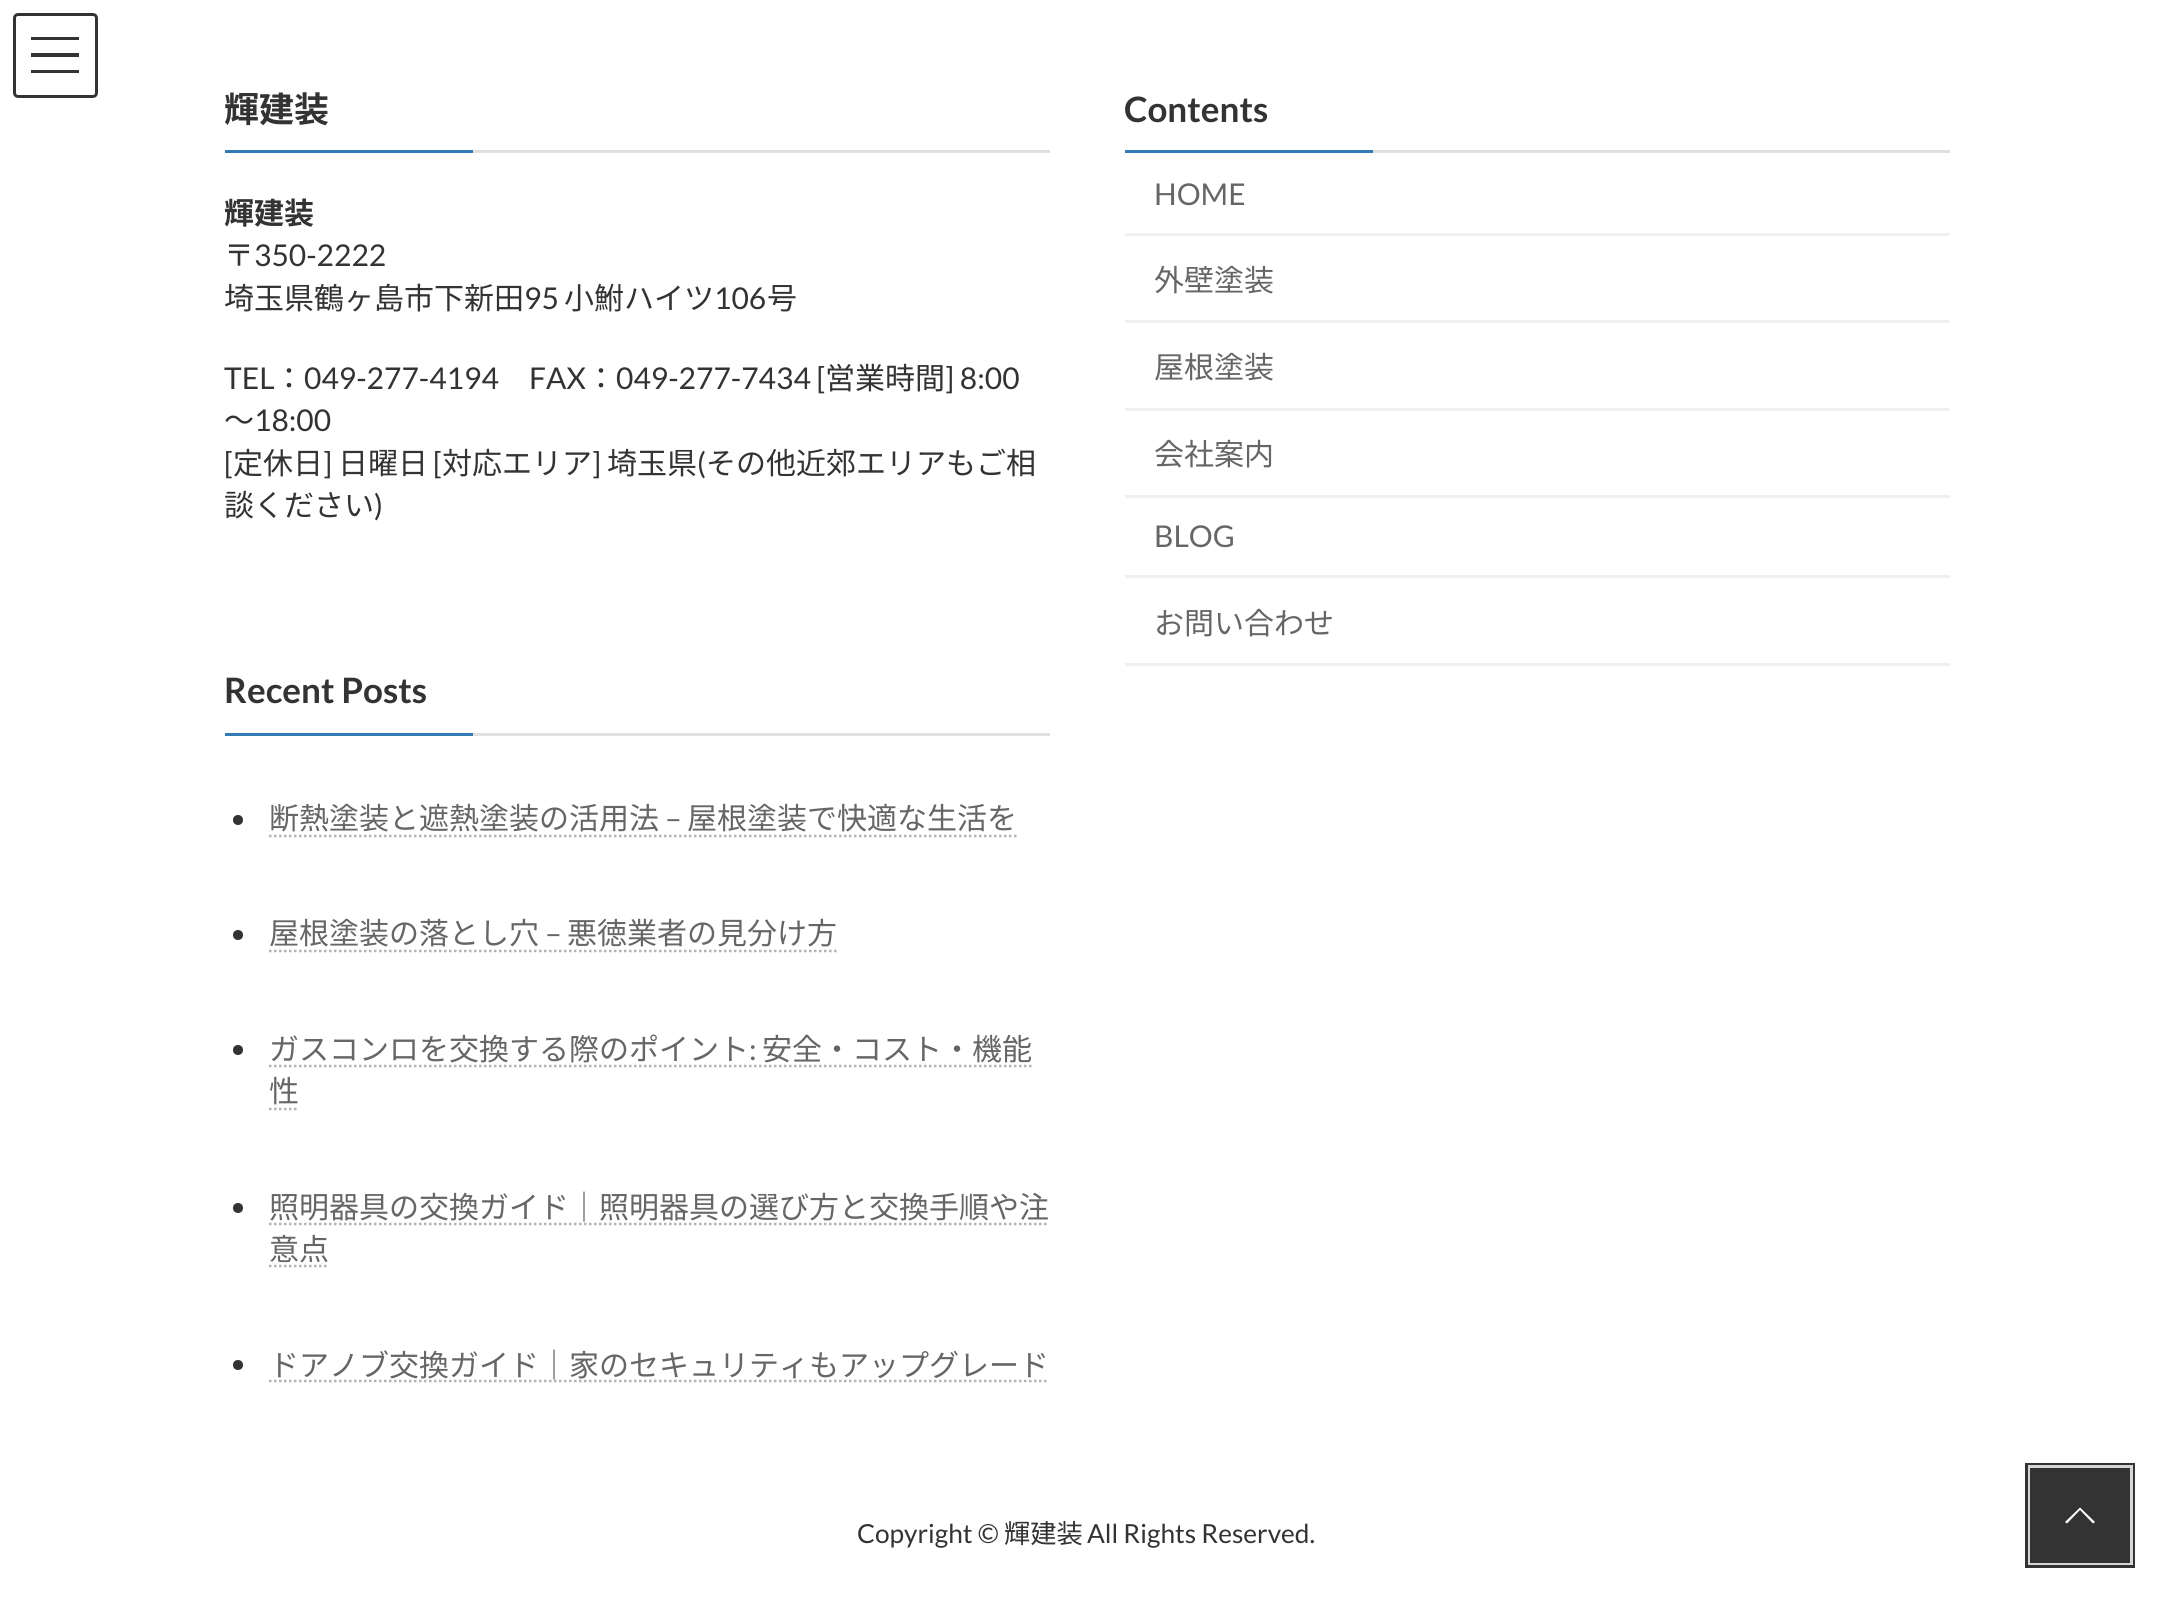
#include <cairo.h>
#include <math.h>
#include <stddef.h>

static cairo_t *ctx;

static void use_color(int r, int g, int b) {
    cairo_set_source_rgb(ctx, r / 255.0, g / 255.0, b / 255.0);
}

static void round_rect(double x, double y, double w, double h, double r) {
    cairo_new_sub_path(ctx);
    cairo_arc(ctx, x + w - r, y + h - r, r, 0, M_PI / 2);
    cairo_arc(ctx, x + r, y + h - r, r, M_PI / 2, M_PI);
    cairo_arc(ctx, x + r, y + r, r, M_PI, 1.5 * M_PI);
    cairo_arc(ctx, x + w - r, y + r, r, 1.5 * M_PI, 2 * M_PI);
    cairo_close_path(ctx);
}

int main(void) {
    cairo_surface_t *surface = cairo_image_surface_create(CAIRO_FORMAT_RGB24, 2171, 1610);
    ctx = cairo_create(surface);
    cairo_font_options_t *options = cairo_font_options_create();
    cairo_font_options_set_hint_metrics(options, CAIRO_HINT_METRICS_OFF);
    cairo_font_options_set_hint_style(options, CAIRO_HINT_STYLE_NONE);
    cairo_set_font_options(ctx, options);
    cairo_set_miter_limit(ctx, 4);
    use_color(255, 255, 255);
    cairo_paint(ctx);
    use_color(51, 51, 51);
    cairo_rectangle(ctx, 31, 37, 48, 3);
    cairo_fill(ctx);
    cairo_rectangle(ctx, 31, 53, 48, 4);
    cairo_fill(ctx);
    cairo_rectangle(ctx, 31, 70, 48, 3);
    cairo_fill(ctx);
    round_rect(14.5, 14.5, 82, 82, 3.5);
    cairo_set_line_width(ctx, 3);
    cairo_stroke(ctx);
    use_color(224, 224, 224);
    cairo_rectangle(ctx, 473, 150, 577, 3);
    cairo_fill(ctx);
    cairo_select_font_face(ctx, "Noto Sans JP", CAIRO_FONT_SLANT_NORMAL, CAIRO_FONT_WEIGHT_BOLD);
    cairo_set_font_size(ctx, 35);
    use_color(51, 51, 51);
    cairo_move_to(ctx, 224, 122);
    cairo_show_text(ctx, "輝建装");
    use_color(51, 122, 183);
    cairo_rectangle(ctx, 225, 150, 248, 3);
    cairo_fill(ctx);
    cairo_set_font_size(ctx, 30);
    use_color(51, 51, 51);
    cairo_move_to(ctx, 224, 224);
    cairo_show_text(ctx, "輝建装");
    cairo_select_font_face(ctx, "Noto Sans JP", CAIRO_FONT_SLANT_NORMAL, CAIRO_FONT_WEIGHT_NORMAL);
    cairo_move_to(ctx, 224, 266);
    cairo_show_text(ctx, "〒");
    cairo_select_font_face(ctx, "Lato", CAIRO_FONT_SLANT_NORMAL, CAIRO_FONT_WEIGHT_NORMAL);
    cairo_move_to(ctx, 254, 266);
    cairo_show_text(ctx, "350-2222");
    cairo_select_font_face(ctx, "Noto Sans JP", CAIRO_FONT_SLANT_NORMAL, CAIRO_FONT_WEIGHT_NORMAL);
    cairo_move_to(ctx, 224, 309);
    cairo_show_text(ctx, "埼玉県鶴ヶ島市下新田");
    cairo_select_font_face(ctx, "Lato", CAIRO_FONT_SLANT_NORMAL, CAIRO_FONT_WEIGHT_NORMAL);
    cairo_move_to(ctx, 524, 309);
    cairo_show_text(ctx, "95");
    cairo_select_font_face(ctx, "Noto Sans JP", CAIRO_FONT_SLANT_NORMAL, CAIRO_FONT_WEIGHT_NORMAL);
    cairo_move_to(ctx, 564, 309);
    cairo_show_text(ctx, "小鮒ハイツ");
    cairo_select_font_face(ctx, "Lato", CAIRO_FONT_SLANT_NORMAL, CAIRO_FONT_WEIGHT_NORMAL);
    cairo_move_to(ctx, 714, 309);
    cairo_show_text(ctx, "106");
    cairo_select_font_face(ctx, "Noto Sans JP", CAIRO_FONT_SLANT_NORMAL, CAIRO_FONT_WEIGHT_NORMAL);
    cairo_move_to(ctx, 767, 309);
    cairo_show_text(ctx, "号");
    cairo_select_font_face(ctx, "Lato", CAIRO_FONT_SLANT_NORMAL, CAIRO_FONT_WEIGHT_NORMAL);
    cairo_move_to(ctx, 224, 389);
    cairo_show_text(ctx, "TEL");
    cairo_select_font_face(ctx, "Noto Sans JP", CAIRO_FONT_SLANT_NORMAL, CAIRO_FONT_WEIGHT_NORMAL);
    cairo_move_to(ctx, 274, 389);
    cairo_show_text(ctx, "：");
    cairo_select_font_face(ctx, "Lato", CAIRO_FONT_SLANT_NORMAL, CAIRO_FONT_WEIGHT_NORMAL);
    cairo_move_to(ctx, 304, 389);
    cairo_show_text(ctx, "049-277-4194");
    cairo_move_to(ctx, 529, 389);
    cairo_show_text(ctx, "FAX");
    cairo_select_font_face(ctx, "Noto Sans JP", CAIRO_FONT_SLANT_NORMAL, CAIRO_FONT_WEIGHT_NORMAL);
    cairo_move_to(ctx, 586, 389);
    cairo_show_text(ctx, "：");
    cairo_select_font_face(ctx, "Lato", CAIRO_FONT_SLANT_NORMAL, CAIRO_FONT_WEIGHT_NORMAL);
    cairo_move_to(ctx, 616, 389);
    cairo_show_text(ctx, "049-277-7434 [");
    cairo_select_font_face(ctx, "Noto Sans JP", CAIRO_FONT_SLANT_NORMAL, CAIRO_FONT_WEIGHT_NORMAL);
    cairo_move_to(ctx, 825, 389);
    cairo_show_text(ctx, "営業時間");
    cairo_select_font_face(ctx, "Lato", CAIRO_FONT_SLANT_NORMAL, CAIRO_FONT_WEIGHT_NORMAL);
    cairo_move_to(ctx, 945, 389);
    cairo_show_text(ctx, "] 8:00");
    cairo_select_font_face(ctx, "Noto Sans JP", CAIRO_FONT_SLANT_NORMAL, CAIRO_FONT_WEIGHT_NORMAL);
    cairo_move_to(ctx, 224, 431);
    cairo_show_text(ctx, "～");
    cairo_select_font_face(ctx, "Lato", CAIRO_FONT_SLANT_NORMAL, CAIRO_FONT_WEIGHT_NORMAL);
    cairo_move_to(ctx, 254, 431);
    cairo_show_text(ctx, "18:00");
    cairo_move_to(ctx, 224, 474);
    cairo_show_text(ctx, "[");
    cairo_select_font_face(ctx, "Noto Sans JP", CAIRO_FONT_SLANT_NORMAL, CAIRO_FONT_WEIGHT_NORMAL);
    cairo_move_to(ctx, 233, 474);
    cairo_show_text(ctx, "定休日");
    cairo_select_font_face(ctx, "Lato", CAIRO_FONT_SLANT_NORMAL, CAIRO_FONT_WEIGHT_NORMAL);
    cairo_move_to(ctx, 323, 474);
    cairo_show_text(ctx, "]");
    cairo_select_font_face(ctx, "Noto Sans JP", CAIRO_FONT_SLANT_NORMAL, CAIRO_FONT_WEIGHT_NORMAL);
    cairo_move_to(ctx, 338, 474);
    cairo_show_text(ctx, "日曜日");
    cairo_select_font_face(ctx, "Lato", CAIRO_FONT_SLANT_NORMAL, CAIRO_FONT_WEIGHT_NORMAL);
    cairo_move_to(ctx, 433, 474);
    cairo_show_text(ctx, "[");
    cairo_select_font_face(ctx, "Noto Sans JP", CAIRO_FONT_SLANT_NORMAL, CAIRO_FONT_WEIGHT_NORMAL);
    cairo_move_to(ctx, 442, 474);
    cairo_show_text(ctx, "対応エリア");
    cairo_select_font_face(ctx, "Lato", CAIRO_FONT_SLANT_NORMAL, CAIRO_FONT_WEIGHT_NORMAL);
    cairo_move_to(ctx, 592, 474);
    cairo_show_text(ctx, "]");
    cairo_select_font_face(ctx, "Noto Sans JP", CAIRO_FONT_SLANT_NORMAL, CAIRO_FONT_WEIGHT_NORMAL);
    cairo_move_to(ctx, 607, 474);
    cairo_show_text(ctx, "埼玉県");
    cairo_select_font_face(ctx, "Lato", CAIRO_FONT_SLANT_NORMAL, CAIRO_FONT_WEIGHT_NORMAL);
    cairo_move_to(ctx, 697, 474);
    cairo_show_text(ctx, "(");
    cairo_select_font_face(ctx, "Noto Sans JP", CAIRO_FONT_SLANT_NORMAL, CAIRO_FONT_WEIGHT_NORMAL);
    cairo_move_to(ctx, 706, 474);
    cairo_show_text(ctx, "その他近郊エリアもご相");
    cairo_move_to(ctx, 224, 516);
    cairo_show_text(ctx, "談ください");
    cairo_select_font_face(ctx, "Lato", CAIRO_FONT_SLANT_NORMAL, CAIRO_FONT_WEIGHT_NORMAL);
    cairo_move_to(ctx, 374, 516);
    cairo_show_text(ctx, ")");
    use_color(224, 224, 224);
    cairo_rectangle(ctx, 1373, 150, 577, 3);
    cairo_fill(ctx);
    cairo_select_font_face(ctx, "Lato", CAIRO_FONT_SLANT_NORMAL, CAIRO_FONT_WEIGHT_BOLD);
    cairo_set_font_size(ctx, 35);
    use_color(51, 51, 51);
    cairo_move_to(ctx, 1124, 122);
    cairo_show_text(ctx, "Contents");
    use_color(51, 122, 183);
    cairo_rectangle(ctx, 1125, 150, 248, 3);
    cairo_fill(ctx);
    use_color(240, 240, 240);
    cairo_rectangle(ctx, 1125, 233, 825, 3);
    cairo_fill(ctx);
    cairo_select_font_face(ctx, "Lato", CAIRO_FONT_SLANT_NORMAL, CAIRO_FONT_WEIGHT_NORMAL);
    cairo_set_font_size(ctx, 30);
    use_color(102, 102, 102);
    cairo_move_to(ctx, 1154, 205);
    cairo_show_text(ctx, "HOME");
    use_color(240, 240, 240);
    cairo_rectangle(ctx, 1125, 320, 825, 3);
    cairo_fill(ctx);
    cairo_select_font_face(ctx, "Noto Sans JP", CAIRO_FONT_SLANT_NORMAL, CAIRO_FONT_WEIGHT_NORMAL);
    use_color(102, 102, 102);
    cairo_move_to(ctx, 1154, 291);
    cairo_show_text(ctx, "外壁塗装");
    use_color(240, 240, 240);
    cairo_rectangle(ctx, 1125, 408, 825, 3);
    cairo_fill(ctx);
    use_color(102, 102, 102);
    cairo_move_to(ctx, 1154, 378);
    cairo_show_text(ctx, "屋根塗装");
    use_color(240, 240, 240);
    cairo_rectangle(ctx, 1125, 495, 825, 3);
    cairo_fill(ctx);
    use_color(102, 102, 102);
    cairo_move_to(ctx, 1154, 465);
    cairo_show_text(ctx, "会社案内");
    use_color(240, 240, 240);
    cairo_rectangle(ctx, 1125, 575, 825, 3);
    cairo_fill(ctx);
    cairo_select_font_face(ctx, "Lato", CAIRO_FONT_SLANT_NORMAL, CAIRO_FONT_WEIGHT_NORMAL);
    use_color(102, 102, 102);
    cairo_move_to(ctx, 1154, 547);
    cairo_show_text(ctx, "BLOG");
    use_color(240, 240, 240);
    cairo_rectangle(ctx, 1125, 663, 825, 3);
    cairo_fill(ctx);
    cairo_select_font_face(ctx, "Noto Sans JP", CAIRO_FONT_SLANT_NORMAL, CAIRO_FONT_WEIGHT_NORMAL);
    use_color(102, 102, 102);
    cairo_move_to(ctx, 1154, 634);
    cairo_show_text(ctx, "お問い合わせ");
    use_color(224, 224, 224);
    cairo_rectangle(ctx, 473, 733, 577, 3);
    cairo_fill(ctx);
    cairo_select_font_face(ctx, "Lato", CAIRO_FONT_SLANT_NORMAL, CAIRO_FONT_WEIGHT_BOLD);
    cairo_set_font_size(ctx, 35);
    use_color(51, 51, 51);
    cairo_move_to(ctx, 224, 703);
    cairo_show_text(ctx, "Recent Posts");
    use_color(51, 122, 183);
    cairo_rectangle(ctx, 225, 733, 248, 3);
    cairo_fill(ctx);
    use_color(51, 51, 51);
    cairo_arc(ctx, 238, 820, 5, 0, 2 * M_PI);
    cairo_fill(ctx);
    cairo_select_font_face(ctx, "Noto Sans JP", CAIRO_FONT_SLANT_NORMAL, CAIRO_FONT_WEIGHT_NORMAL);
    cairo_set_font_size(ctx, 30);
    use_color(102, 102, 102);
    cairo_move_to(ctx, 269, 829);
    cairo_show_text(ctx, "断熱塗装と遮熱塗装の活用法");
    cairo_select_font_face(ctx, "Lato", CAIRO_FONT_SLANT_NORMAL, CAIRO_FONT_WEIGHT_NORMAL);
    cairo_move_to(ctx, 665, 829);
    cairo_show_text(ctx, "–");
    cairo_new_path(ctx);
    cairo_move_to(ctx, 269, 836);
    cairo_line_to(ctx, 1017, 836);
    use_color(179, 179, 179);
    cairo_set_line_width(ctx, 2.5);
    cairo_set_dash(ctx, (double[]){2.5, 2.5}, 2, 0);
    cairo_stroke(ctx);
    cairo_select_font_face(ctx, "Noto Sans JP", CAIRO_FONT_SLANT_NORMAL, CAIRO_FONT_WEIGHT_NORMAL);
    use_color(102, 102, 102);
    cairo_move_to(ctx, 687, 829);
    cairo_show_text(ctx, "屋根塗装で快適な生活を");
    use_color(51, 51, 51);
    cairo_new_path(ctx);
    cairo_arc(ctx, 238, 935, 5, 0, 2 * M_PI);
    cairo_fill(ctx);
    use_color(102, 102, 102);
    cairo_move_to(ctx, 269, 944);
    cairo_show_text(ctx, "屋根塗装の落とし穴");
    cairo_select_font_face(ctx, "Lato", CAIRO_FONT_SLANT_NORMAL, CAIRO_FONT_WEIGHT_NORMAL);
    cairo_move_to(ctx, 545, 944);
    cairo_show_text(ctx, "–");
    cairo_new_path(ctx);
    cairo_move_to(ctx, 269, 951);
    cairo_line_to(ctx, 837, 951);
    use_color(179, 179, 179);
    cairo_stroke(ctx);
    cairo_select_font_face(ctx, "Noto Sans JP", CAIRO_FONT_SLANT_NORMAL, CAIRO_FONT_WEIGHT_NORMAL);
    use_color(102, 102, 102);
    cairo_move_to(ctx, 567, 944);
    cairo_show_text(ctx, "悪徳業者の見分け方");
    use_color(51, 51, 51);
    cairo_new_path(ctx);
    cairo_arc(ctx, 238, 1050, 5, 0, 2 * M_PI);
    cairo_fill(ctx);
    use_color(102, 102, 102);
    cairo_move_to(ctx, 269, 1060);
    cairo_show_text(ctx, "ガスコンロを交換する際のポイント");
    cairo_select_font_face(ctx, "Lato", CAIRO_FONT_SLANT_NORMAL, CAIRO_FONT_WEIGHT_NORMAL);
    cairo_move_to(ctx, 749, 1060);
    cairo_show_text(ctx, ":");
    cairo_new_path(ctx);
    cairo_move_to(ctx, 269, 1066);
    cairo_line_to(ctx, 1032, 1066);
    use_color(179, 179, 179);
    cairo_stroke(ctx);
    cairo_select_font_face(ctx, "Noto Sans JP", CAIRO_FONT_SLANT_NORMAL, CAIRO_FONT_WEIGHT_NORMAL);
    use_color(102, 102, 102);
    cairo_move_to(ctx, 762, 1060);
    cairo_show_text(ctx, "安全・コスト・機能");
    cairo_move_to(ctx, 269, 1102);
    cairo_show_text(ctx, "性");
    cairo_new_path(ctx);
    cairo_move_to(ctx, 269, 1109);
    cairo_line_to(ctx, 299, 1109);
    use_color(179, 179, 179);
    cairo_stroke(ctx);
    use_color(51, 51, 51);
    cairo_arc(ctx, 238, 1208, 5, 0, 2 * M_PI);
    cairo_fill(ctx);
    use_color(102, 102, 102);
    cairo_move_to(ctx, 269, 1218);
    cairo_show_text(ctx, "照明器具の交換ガイド｜照明器具の選び方と交換手順や注");
    cairo_new_path(ctx);
    cairo_move_to(ctx, 269, 1224);
    cairo_line_to(ctx, 1049, 1224);
    use_color(179, 179, 179);
    cairo_stroke(ctx);
    use_color(102, 102, 102);
    cairo_move_to(ctx, 269, 1260);
    cairo_show_text(ctx, "意点");
    cairo_new_path(ctx);
    cairo_move_to(ctx, 269, 1266);
    cairo_line_to(ctx, 329, 1266);
    use_color(179, 179, 179);
    cairo_stroke(ctx);
    use_color(51, 51, 51);
    cairo_arc(ctx, 238, 1365, 5, 0, 2 * M_PI);
    cairo_fill(ctx);
    cairo_new_path(ctx);
    cairo_move_to(ctx, 269, 1381);
    cairo_line_to(ctx, 1049, 1381);
    use_color(179, 179, 179);
    cairo_stroke(ctx);
    use_color(102, 102, 102);
    cairo_move_to(ctx, 269, 1376);
    cairo_show_text(ctx, "ドアノブ交換ガイド｜家のセキュリティもアップグレード");
    cairo_select_font_face(ctx, "Lato", CAIRO_FONT_SLANT_NORMAL, CAIRO_FONT_WEIGHT_NORMAL);
    cairo_set_font_size(ctx, 26.25);
    use_color(51, 51, 51);
    cairo_move_to(ctx, 857, 1543);
    cairo_show_text(ctx, "Copyright ©");
    cairo_select_font_face(ctx, "Noto Sans JP", CAIRO_FONT_SLANT_NORMAL, CAIRO_FONT_WEIGHT_NORMAL);
    cairo_move_to(ctx, 1004, 1543);
    cairo_show_text(ctx, "輝建装");
    cairo_select_font_face(ctx, "Lato", CAIRO_FONT_SLANT_NORMAL, CAIRO_FONT_WEIGHT_NORMAL);
    cairo_move_to(ctx, 1087, 1543);
    cairo_show_text(ctx, "All Rights Reserved.");
    cairo_rectangle(ctx, 2027.5, 1465.5, 105, 100);
    cairo_set_line_width(ctx, 5);
    cairo_set_dash(ctx, NULL, 0, 0);
    cairo_stroke(ctx);
    cairo_rectangle(ctx, 2029.5, 1466.5, 102, 97);
    cairo_set_source_rgba(ctx, 1, 1, 1, 0.8);
    cairo_set_line_width(ctx, 3);
    cairo_stroke(ctx);
    use_color(51, 51, 51);
    cairo_rectangle(ctx, 2030, 1468, 100, 95);
    cairo_fill(ctx);
    use_color(255, 255, 255);
    cairo_new_path(ctx);
    cairo_move_to(ctx, 2095, 1522);
    cairo_line_to(ctx, 2093, 1523.5);
    cairo_line_to(ctx, 2080, 1510);
    cairo_line_to(ctx, 2067, 1523.5);
    cairo_line_to(ctx, 2065, 1522);
    cairo_line_to(ctx, 2080, 1507.5);
    cairo_close_path(ctx);
    cairo_fill(ctx);
    cairo_surface_write_to_png(surface, "result.png");
    cairo_font_options_destroy(options);
    cairo_destroy(ctx);
    cairo_surface_destroy(surface);
    return 0;
}
